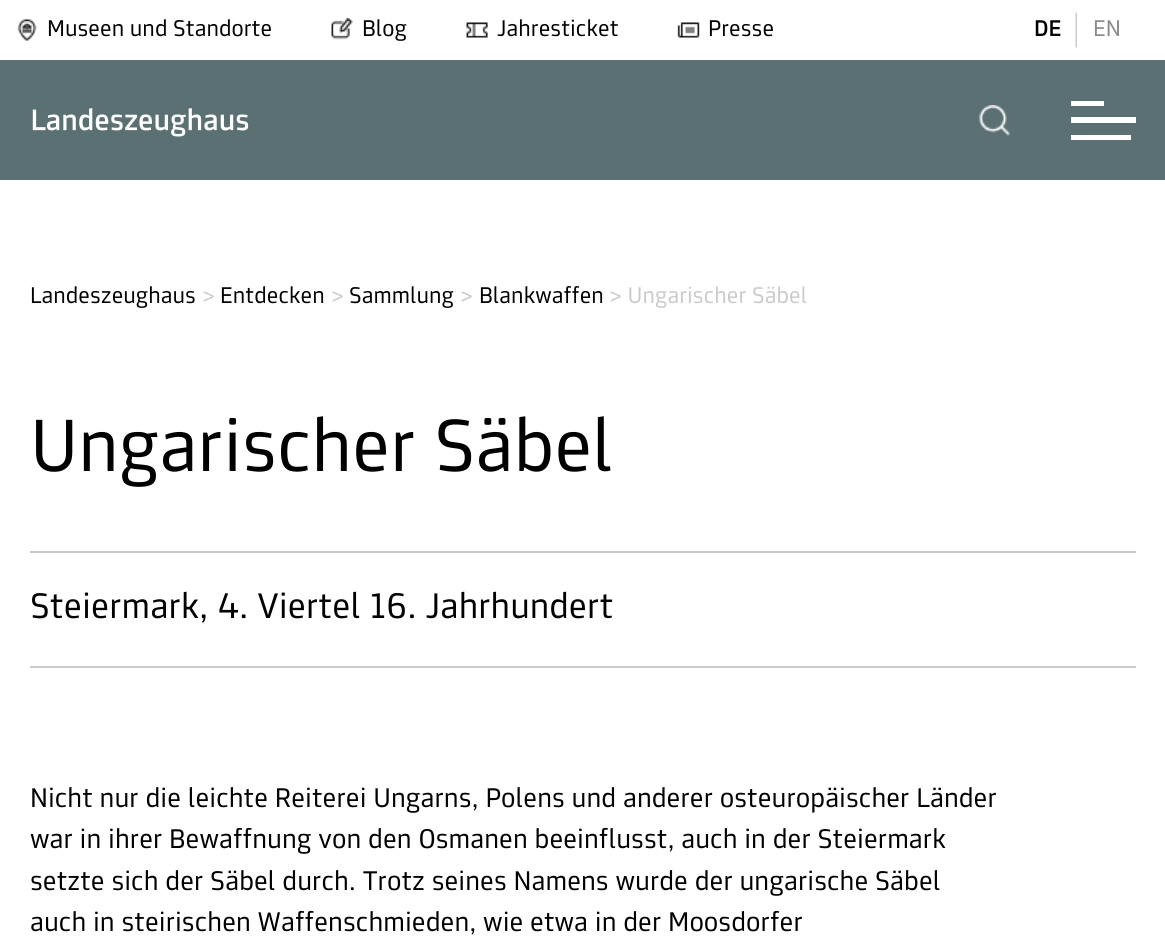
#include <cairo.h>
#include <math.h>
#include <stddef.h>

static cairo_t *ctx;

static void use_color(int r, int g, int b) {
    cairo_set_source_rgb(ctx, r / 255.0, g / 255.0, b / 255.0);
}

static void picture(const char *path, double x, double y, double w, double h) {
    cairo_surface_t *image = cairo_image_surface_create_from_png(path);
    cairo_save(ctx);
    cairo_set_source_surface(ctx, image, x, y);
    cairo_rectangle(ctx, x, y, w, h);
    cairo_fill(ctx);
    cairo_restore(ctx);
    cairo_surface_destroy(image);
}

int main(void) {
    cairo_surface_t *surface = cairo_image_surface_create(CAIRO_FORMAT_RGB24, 1165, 945);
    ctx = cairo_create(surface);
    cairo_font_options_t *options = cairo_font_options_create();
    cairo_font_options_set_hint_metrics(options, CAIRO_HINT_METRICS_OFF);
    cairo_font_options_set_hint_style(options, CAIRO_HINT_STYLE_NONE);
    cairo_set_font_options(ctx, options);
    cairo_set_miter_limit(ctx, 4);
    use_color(255, 255, 255);
    cairo_paint(ctx);
    picture("img1.png", 17, 19, 20, 22);
    cairo_select_font_face(ctx, "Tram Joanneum", CAIRO_FONT_SLANT_NORMAL, CAIRO_FONT_WEIGHT_NORMAL);
    cairo_set_font_size(ctx, 24);
    use_color(0, 0, 0);
    cairo_move_to(ctx, 47, 36);
    cairo_show_text(ctx, "Museen und Standorte");
    picture("img2.png", 331, 18, 22, 22);
    cairo_move_to(ctx, 362, 36);
    cairo_show_text(ctx, "Blog");
    picture("img3.png", 466, 22, 22, 16);
    cairo_move_to(ctx, 497, 36);
    cairo_show_text(ctx, "Jahresticket");
    picture("img4.png", 677, 22, 23, 16);
    cairo_move_to(ctx, 708, 36);
    cairo_show_text(ctx, "Presse");
    cairo_select_font_face(ctx, "Tram Joanneum Medium", CAIRO_FONT_SLANT_NORMAL, CAIRO_FONT_WEIGHT_NORMAL);
    cairo_move_to(ctx, 1034, 36);
    cairo_show_text(ctx, "DE");
    picture("img5.png", 1075, 12, 2, 36);
    cairo_select_font_face(ctx, "Tram Joanneum", CAIRO_FONT_SLANT_NORMAL, CAIRO_FONT_WEIGHT_NORMAL);
    use_color(138, 138, 138);
    cairo_move_to(ctx, 1093, 36);
    cairo_show_text(ctx, "EN");
    use_color(91, 112, 115);
    cairo_rectangle(ctx, 0, 60, 1165, 120);
    cairo_fill(ctx);
    picture("img6.png", 32, 108, 217, 29);
    picture("img7.png", 979, 105, 31, 31);
    use_color(255, 255, 255);
    cairo_rectangle(ctx, 1071, 101, 33, 5);
    cairo_fill(ctx);
    cairo_rectangle(ctx, 1071, 117, 65, 6);
    cairo_fill(ctx);
    cairo_rectangle(ctx, 1071, 135, 60, 5);
    cairo_fill(ctx);
    use_color(0, 0, 0);
    cairo_move_to(ctx, 30, 303);
    cairo_show_text(ctx, "Landeszeughaus");
    use_color(202, 202, 202);
    cairo_move_to(ctx, 202, 303);
    cairo_show_text(ctx, ">");
    use_color(0, 0, 0);
    cairo_move_to(ctx, 220, 303);
    cairo_show_text(ctx, "Entdecken");
    use_color(202, 202, 202);
    cairo_move_to(ctx, 331, 303);
    cairo_show_text(ctx, ">");
    use_color(0, 0, 0);
    cairo_move_to(ctx, 349, 303);
    cairo_show_text(ctx, "Sammlung");
    use_color(202, 202, 202);
    cairo_move_to(ctx, 460, 303);
    cairo_show_text(ctx, ">");
    use_color(0, 0, 0);
    cairo_move_to(ctx, 479, 303);
    cairo_show_text(ctx, "Blankwaffen");
    use_color(202, 202, 202);
    cairo_move_to(ctx, 609, 303);
    cairo_show_text(ctx, "> Ungarischer Säbel");
    cairo_set_font_size(ctx, 78);
    use_color(0, 0, 0);
    cairo_move_to(ctx, 30, 471);
    cairo_show_text(ctx, "Ungarischer Säbel");
    use_color(202, 202, 202);
    cairo_rectangle(ctx, 30, 551, 1106, 2);
    cairo_fill(ctx);
    cairo_set_font_size(ctx, 37.5);
    use_color(0, 0, 0);
    cairo_move_to(ctx, 30, 618);
    cairo_show_text(ctx, "Steiermark, 4. Viertel 16. Jahrhundert");
    use_color(202, 202, 202);
    cairo_rectangle(ctx, 30, 666, 1106, 2);
    cairo_fill(ctx);
    cairo_set_font_size(ctx, 28.5);
    use_color(0, 0, 0);
    cairo_move_to(ctx, 30, 807);
    cairo_show_text(ctx, "Nicht nur die leichte Reiterei Ungarns, Polens und anderer osteuropäischer Länder");
    cairo_move_to(ctx, 30, 848);
    cairo_show_text(ctx, "war in ihrer Bewaffnung von den Osmanen beeinflusst, auch in der Steiermark");
    cairo_move_to(ctx, 30, 890);
    cairo_show_text(ctx, "setzte sich der Säbel durch. Trotz seines Namens wurde der ungarische Säbel");
    cairo_move_to(ctx, 30, 931);
    cairo_show_text(ctx, "auch in steirischen Waffenschmieden, wie etwa in der Moosdorfer");
    cairo_surface_write_to_png(surface, "result.png");
    cairo_font_options_destroy(options);
    cairo_destroy(ctx);
    cairo_surface_destroy(surface);
    return 0;
}
